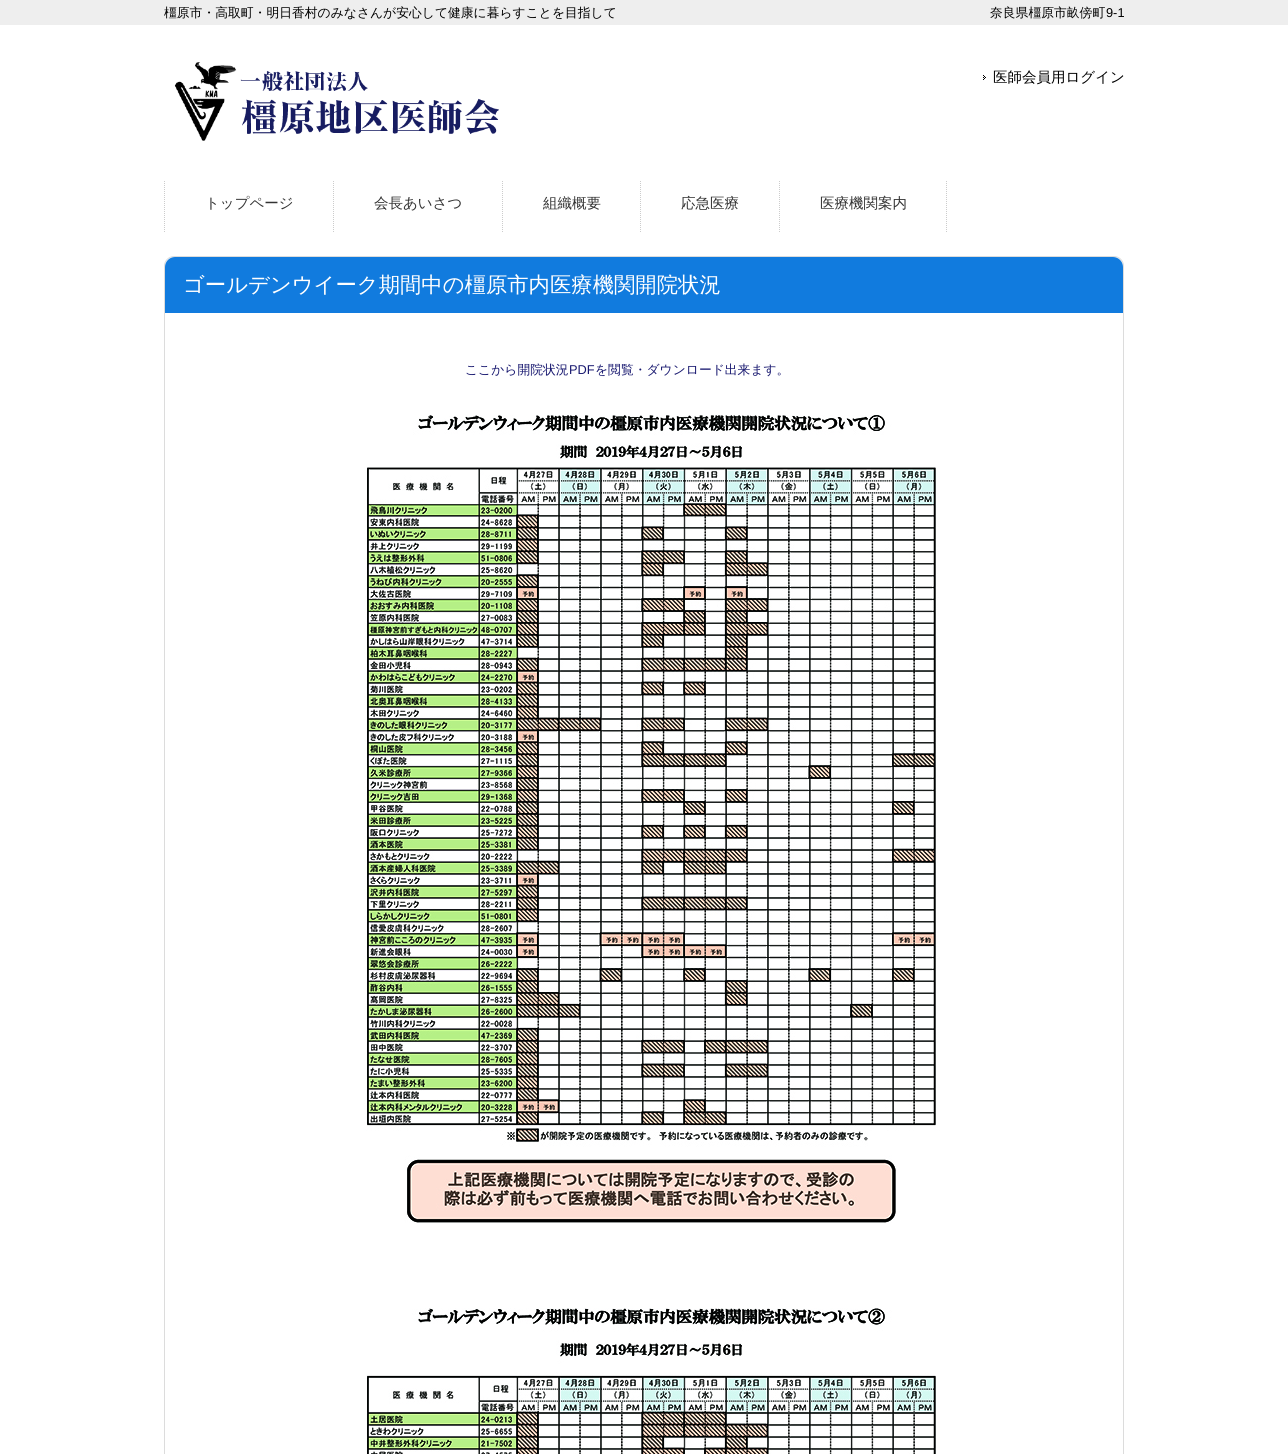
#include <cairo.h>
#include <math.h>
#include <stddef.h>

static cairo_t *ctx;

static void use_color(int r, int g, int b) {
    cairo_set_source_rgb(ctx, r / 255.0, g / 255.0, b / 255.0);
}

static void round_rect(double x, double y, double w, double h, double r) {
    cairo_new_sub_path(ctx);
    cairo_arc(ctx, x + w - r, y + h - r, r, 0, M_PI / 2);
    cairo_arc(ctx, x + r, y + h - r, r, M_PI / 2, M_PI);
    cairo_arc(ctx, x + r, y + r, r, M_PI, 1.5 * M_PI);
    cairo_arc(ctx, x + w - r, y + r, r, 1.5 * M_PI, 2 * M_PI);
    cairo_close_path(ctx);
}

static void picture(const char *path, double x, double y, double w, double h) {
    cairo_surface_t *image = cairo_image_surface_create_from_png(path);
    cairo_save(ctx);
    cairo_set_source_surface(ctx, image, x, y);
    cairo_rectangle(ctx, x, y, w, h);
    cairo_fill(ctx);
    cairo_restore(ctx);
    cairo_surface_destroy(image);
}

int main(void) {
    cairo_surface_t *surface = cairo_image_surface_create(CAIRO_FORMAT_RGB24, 1288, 1454);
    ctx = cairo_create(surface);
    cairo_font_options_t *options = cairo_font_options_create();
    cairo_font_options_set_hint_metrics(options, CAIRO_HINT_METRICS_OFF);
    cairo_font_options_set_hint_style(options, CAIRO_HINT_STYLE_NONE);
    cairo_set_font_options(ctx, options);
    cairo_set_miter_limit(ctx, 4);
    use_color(255, 255, 255);
    cairo_paint(ctx);
    use_color(238, 238, 238);
    cairo_rectangle(ctx, 0, 0, 1288, 25);
    cairo_fill(ctx);
    cairo_select_font_face(ctx, "WenQuanYi Zen Hei Medium", CAIRO_FONT_SLANT_NORMAL, CAIRO_FONT_WEIGHT_NORMAL);
    cairo_set_font_size(ctx, 12.8);
    use_color(0, 0, 0);
    cairo_move_to(ctx, 164, 17);
    cairo_show_text(ctx, "橿原市・高取町・明日香村のみなさんが安心して健康に暮らすことを目指して");
    cairo_move_to(ctx, 990, 17);
    cairo_show_text(ctx, "奈良県橿原市畝傍町");
    cairo_select_font_face(ctx, "Liberation Sans", CAIRO_FONT_SLANT_NORMAL, CAIRO_FONT_WEIGHT_NORMAL);
    cairo_move_to(ctx, 1106, 17);
    cairo_show_text(ctx, "9-1");
    picture("img1.png", 174, 62, 325, 79);
    picture("img2.png", 983, 75, 3, 5);
    cairo_select_font_face(ctx, "WenQuanYi Zen Hei Medium", CAIRO_FONT_SLANT_NORMAL, CAIRO_FONT_WEIGHT_NORMAL);
    cairo_set_font_size(ctx, 14.5);
    cairo_move_to(ctx, 993, 82);
    cairo_show_text(ctx, "医師会員用ログイン");
    cairo_new_path(ctx);
    cairo_move_to(ctx, 333.5, 181);
    cairo_line_to(ctx, 333.5, 232);
    use_color(204, 204, 204);
    cairo_set_line_width(ctx, 1);
    cairo_set_dash(ctx, (double[]){1, 1}, 2, 0);
    cairo_stroke(ctx);
    cairo_new_path(ctx);
    cairo_move_to(ctx, 164.5, 181);
    cairo_line_to(ctx, 164.5, 232);
    cairo_stroke(ctx);
    use_color(51, 51, 51);
    cairo_move_to(ctx, 205, 208);
    cairo_show_text(ctx, "トップページ");
    cairo_new_path(ctx);
    cairo_move_to(ctx, 502.5, 181);
    cairo_line_to(ctx, 502.5, 232);
    use_color(204, 204, 204);
    cairo_stroke(ctx);
    use_color(51, 51, 51);
    cairo_move_to(ctx, 374, 208);
    cairo_show_text(ctx, "会長あいさつ");
    cairo_new_path(ctx);
    cairo_move_to(ctx, 640.5, 181);
    cairo_line_to(ctx, 640.5, 232);
    use_color(204, 204, 204);
    cairo_stroke(ctx);
    use_color(51, 51, 51);
    cairo_move_to(ctx, 543, 208);
    cairo_show_text(ctx, "組織概要");
    cairo_new_path(ctx);
    cairo_move_to(ctx, 779.5, 181);
    cairo_line_to(ctx, 779.5, 232);
    use_color(204, 204, 204);
    cairo_stroke(ctx);
    use_color(51, 51, 51);
    cairo_move_to(ctx, 681, 208);
    cairo_show_text(ctx, "応急医療");
    cairo_new_path(ctx);
    cairo_move_to(ctx, 946.5, 181);
    cairo_line_to(ctx, 946.5, 232);
    use_color(204, 204, 204);
    cairo_stroke(ctx);
    use_color(51, 51, 51);
    cairo_move_to(ctx, 820, 208);
    cairo_show_text(ctx, "医療機関案内");
    round_rect(164.5, 256.5, 959, 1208, 9.5);
    use_color(220, 220, 220);
    cairo_set_dash(ctx, NULL, 0, 0);
    cairo_stroke(ctx);
    use_color(17, 123, 222);
    cairo_new_path(ctx);
    cairo_move_to(ctx, 175, 257);
    cairo_line_to(ctx, 1113, 257);
    cairo_curve_to(ctx, 1118.5, 257, 1123, 261.5, 1123, 267);
    cairo_line_to(ctx, 1123, 313);
    cairo_line_to(ctx, 165, 313);
    cairo_line_to(ctx, 165, 267);
    cairo_curve_to(ctx, 165, 261.5, 169.5, 257, 175, 257);
    cairo_close_path(ctx);
    cairo_fill(ctx);
    cairo_set_font_size(ctx, 21.35);
    use_color(255, 255, 255);
    cairo_move_to(ctx, 183, 292);
    cairo_show_text(ctx, "ゴールデンウイーク期間中の橿原市内医療機関開院状況");
    cairo_set_font_size(ctx, 12.8);
    use_color(25, 25, 112);
    cairo_move_to(ctx, 465, 374);
    cairo_show_text(ctx, "ここから開院状況");
    cairo_select_font_face(ctx, "Liberation Sans", CAIRO_FONT_SLANT_NORMAL, CAIRO_FONT_WEIGHT_NORMAL);
    cairo_move_to(ctx, 569, 374);
    cairo_show_text(ctx, "PDF");
    cairo_select_font_face(ctx, "WenQuanYi Zen Hei Medium", CAIRO_FONT_SLANT_NORMAL, CAIRO_FONT_WEIGHT_NORMAL);
    cairo_move_to(ctx, 595, 374);
    cairo_show_text(ctx, "を閲覧・ダウンロード出来ます。");
    picture("img3.png", 364, 415, 576, 808);
    picture("img4.png", 366, 1308, 570, 146);
    cairo_surface_write_to_png(surface, "result.png");
    cairo_font_options_destroy(options);
    cairo_destroy(ctx);
    cairo_surface_destroy(surface);
    return 0;
}
